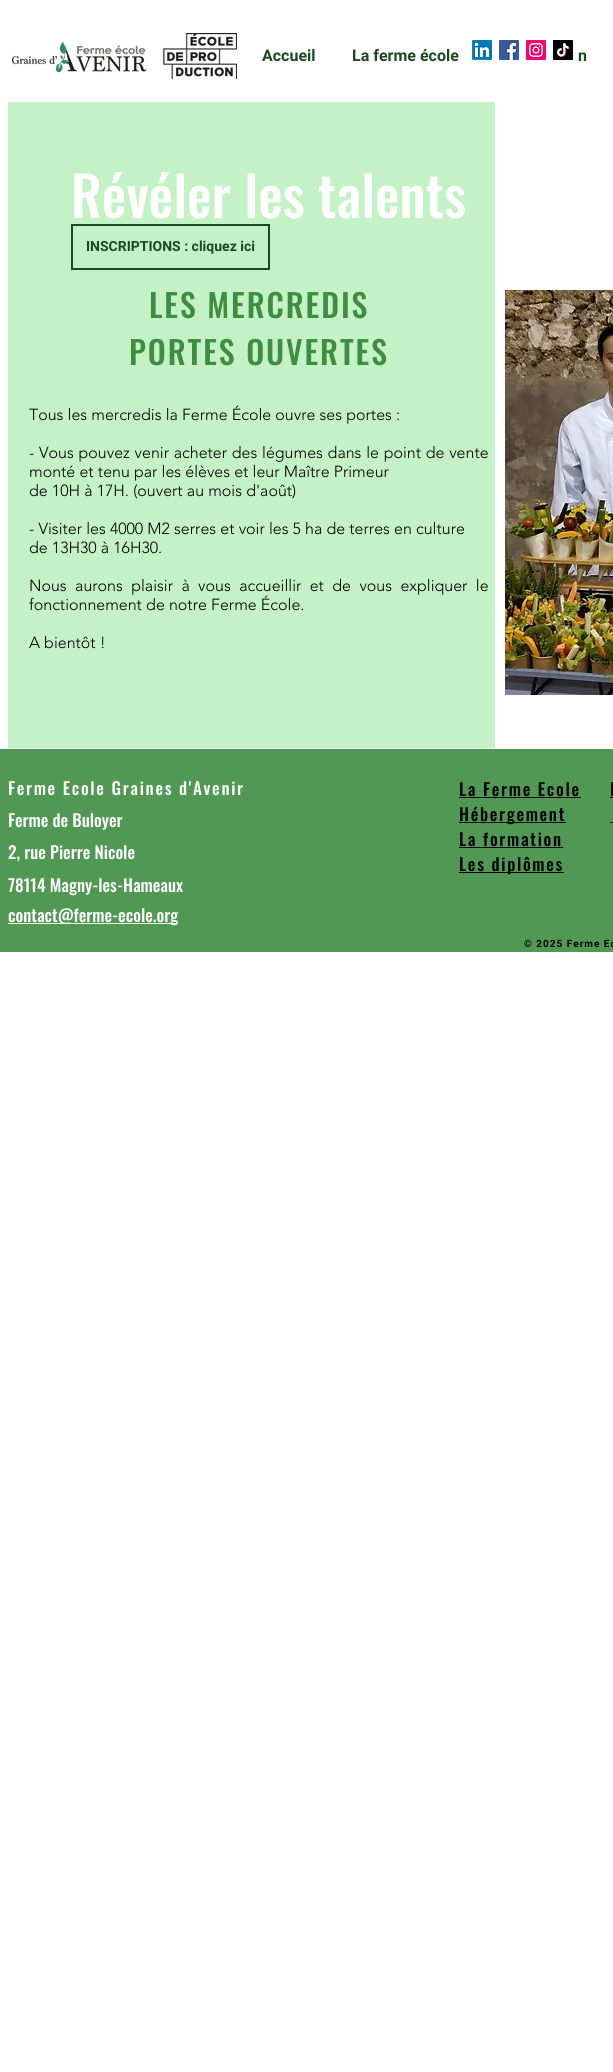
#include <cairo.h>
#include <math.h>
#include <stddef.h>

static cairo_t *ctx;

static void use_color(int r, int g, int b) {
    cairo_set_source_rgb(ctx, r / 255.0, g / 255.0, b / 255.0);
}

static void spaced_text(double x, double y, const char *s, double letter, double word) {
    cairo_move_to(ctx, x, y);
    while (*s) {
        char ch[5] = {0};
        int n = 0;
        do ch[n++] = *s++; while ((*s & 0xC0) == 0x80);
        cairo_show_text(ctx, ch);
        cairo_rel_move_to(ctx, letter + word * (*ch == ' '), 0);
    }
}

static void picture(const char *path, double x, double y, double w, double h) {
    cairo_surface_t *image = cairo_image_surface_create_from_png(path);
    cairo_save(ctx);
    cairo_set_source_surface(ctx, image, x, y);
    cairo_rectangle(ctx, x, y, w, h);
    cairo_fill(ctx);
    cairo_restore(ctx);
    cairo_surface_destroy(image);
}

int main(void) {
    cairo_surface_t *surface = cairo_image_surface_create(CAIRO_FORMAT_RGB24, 613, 2072);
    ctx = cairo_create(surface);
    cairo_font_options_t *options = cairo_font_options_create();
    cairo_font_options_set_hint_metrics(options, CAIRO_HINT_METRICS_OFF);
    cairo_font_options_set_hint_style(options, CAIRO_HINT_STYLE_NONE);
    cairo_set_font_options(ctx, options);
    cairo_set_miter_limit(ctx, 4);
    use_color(255, 255, 255);
    cairo_paint(ctx);
    picture("img1.png", 472, 40, 20, 20);
    picture("img2.png", 499, 40, 20, 20);
    picture("img3.png", 526, 40, 20, 20);
    picture("img4.png", 553, 40, 20, 20);
    picture("img5.png", 12, 33, 225, 46);
    cairo_select_font_face(ctx, "Roboto", CAIRO_FONT_SLANT_NORMAL, CAIRO_FONT_WEIGHT_BOLD);
    cairo_set_font_size(ctx, 16);
    use_color(31, 71, 32);
    cairo_move_to(ctx, 262, 61);
    cairo_show_text(ctx, "Accueil");
    cairo_move_to(ctx, 352, 61);
    cairo_show_text(ctx, "La ferme école");
    cairo_move_to(ctx, 578, 61);
    cairo_show_text(ctx, "n");
    use_color(196, 241, 197);
    cairo_rectangle(ctx, 8, 102, 487, 646);
    cairo_fill(ctx);
    cairo_select_font_face(ctx, "Oswald Medium", CAIRO_FONT_SLANT_NORMAL, CAIRO_FONT_WEIGHT_NORMAL);
    cairo_set_font_size(ctx, 55);
    use_color(255, 255, 255);
    cairo_move_to(ctx, 71, 218);
    cairo_show_text(ctx, "Révéler les talents");
    cairo_rectangle(ctx, 72, 225, 197, 44);
    use_color(31, 71, 32);
    cairo_stroke(ctx);
    cairo_select_font_face(ctx, "Roboto", CAIRO_FONT_SLANT_NORMAL, CAIRO_FONT_WEIGHT_BOLD);
    cairo_set_font_size(ctx, 14);
    cairo_move_to(ctx, 86, 251);
    cairo_show_text(ctx, "INSCRIPTIONS : cliquez ici");
    cairo_select_font_face(ctx, "Oswald Medium", CAIRO_FONT_SLANT_NORMAL, CAIRO_FONT_WEIGHT_NORMAL);
    cairo_set_font_size(ctx, 32);
    use_color(62, 141, 65);
    spaced_text(149, 318, "LES MERCREDIS", 1.9, 0);
    spaced_text(129, 365, "PORTES OUVERTES", 1.9, 0);
    cairo_select_font_face(ctx, "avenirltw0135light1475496 Light", CAIRO_FONT_SLANT_NORMAL, CAIRO_FONT_WEIGHT_NORMAL);
    cairo_set_font_size(ctx, 16);
    use_color(0, 0, 0);
    cairo_move_to(ctx, 29, 420);
    cairo_show_text(ctx, "Tous les mercredis la Ferme École ouvre ses portes :");
    spaced_text(29, 458, "- Vous pouvez venir acheter des légumes dans le point de vente", 0, 0.6);
    cairo_move_to(ctx, 29, 477);
    cairo_show_text(ctx, "monté et tenu par les élèves et leur Maître Primeur");
    cairo_move_to(ctx, 29, 496);
    cairo_show_text(ctx, "de 10H à 17H. (ouvert au mois d'août)");
    cairo_move_to(ctx, 29, 534);
    cairo_show_text(ctx, "- Visiter les 4000 M2 serres et voir les 5 ha de terres en culture");
    cairo_move_to(ctx, 29, 553);
    cairo_show_text(ctx, "de 13H30 à 16H30.");
    spaced_text(29, 591, "Nous aurons plaisir à vous accueillir et de vous expliquer le", 0, 4.25);
    cairo_move_to(ctx, 29, 610);
    cairo_show_text(ctx, "fonctionnement de notre Ferme École.");
    cairo_move_to(ctx, 29, 648);
    cairo_show_text(ctx, "A bientôt !");
    picture("img6.png", 505, 290, 108, 405);
    use_color(81, 152, 84);
    cairo_rectangle(ctx, 0, 749, 613, 203);
    cairo_fill(ctx);
    cairo_select_font_face(ctx, "Oswald Medium", CAIRO_FONT_SLANT_NORMAL, CAIRO_FONT_WEIGHT_NORMAL);
    cairo_set_font_size(ctx, 17);
    use_color(255, 255, 255);
    spaced_text(8, 795, "Ferme Ecole Graines d'Avenir", 1.7, 0);
    cairo_move_to(ctx, 8, 827);
    cairo_show_text(ctx, "Ferme de Buloyer");
    cairo_move_to(ctx, 8, 859);
    cairo_show_text(ctx, "2, rue Pierre Nicole");
    cairo_move_to(ctx, 8, 892);
    cairo_show_text(ctx, "78114 Magny-les-Hameaux");
    cairo_rectangle(ctx, 8, 923, 170, 1);
    cairo_fill(ctx);
    cairo_move_to(ctx, 8, 922);
    cairo_show_text(ctx, "contact@ferme-ecole.org");
    use_color(0, 0, 0);
    spaced_text(459, 796, "La Ferme Ecole", 1.7, 0);
    cairo_rectangle(ctx, 459, 797, 122, 1);
    cairo_fill(ctx);
    cairo_rectangle(ctx, 459, 822, 107, 1);
    cairo_fill(ctx);
    spaced_text(459, 821, "Hébergement", 1.7, 0);
    spaced_text(459, 846, "La formation", 1.7, 0);
    cairo_rectangle(ctx, 459, 847, 104, 1);
    cairo_fill(ctx);
    cairo_rectangle(ctx, 459, 872, 105, 1);
    cairo_fill(ctx);
    spaced_text(459, 871, "Les diplômes", 1.7, 0);
    spaced_text(610, 796, "I", 1.7, 0);
    cairo_rectangle(ctx, 610, 797, 3, 1);
    cairo_fill(ctx);
    cairo_rectangle(ctx, 610, 822, 3, 1);
    cairo_fill(ctx);
    cairo_select_font_face(ctx, "Roboto", CAIRO_FONT_SLANT_NORMAL, CAIRO_FONT_WEIGHT_BOLD);
    cairo_set_font_size(ctx, 10);
    spaced_text(524, 947, "© 2025 Ferme Ec", 1, 0);
    cairo_surface_write_to_png(surface, "result.png");
    cairo_font_options_destroy(options);
    cairo_destroy(ctx);
    cairo_surface_destroy(surface);
    return 0;
}
